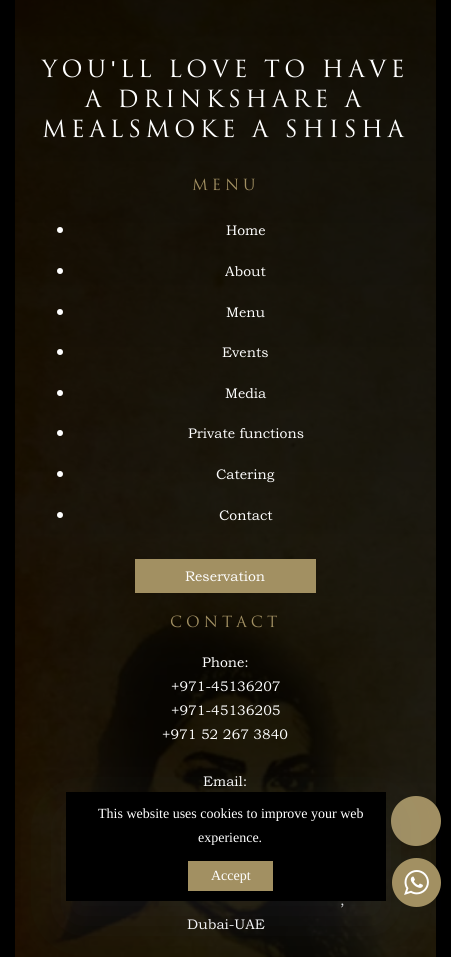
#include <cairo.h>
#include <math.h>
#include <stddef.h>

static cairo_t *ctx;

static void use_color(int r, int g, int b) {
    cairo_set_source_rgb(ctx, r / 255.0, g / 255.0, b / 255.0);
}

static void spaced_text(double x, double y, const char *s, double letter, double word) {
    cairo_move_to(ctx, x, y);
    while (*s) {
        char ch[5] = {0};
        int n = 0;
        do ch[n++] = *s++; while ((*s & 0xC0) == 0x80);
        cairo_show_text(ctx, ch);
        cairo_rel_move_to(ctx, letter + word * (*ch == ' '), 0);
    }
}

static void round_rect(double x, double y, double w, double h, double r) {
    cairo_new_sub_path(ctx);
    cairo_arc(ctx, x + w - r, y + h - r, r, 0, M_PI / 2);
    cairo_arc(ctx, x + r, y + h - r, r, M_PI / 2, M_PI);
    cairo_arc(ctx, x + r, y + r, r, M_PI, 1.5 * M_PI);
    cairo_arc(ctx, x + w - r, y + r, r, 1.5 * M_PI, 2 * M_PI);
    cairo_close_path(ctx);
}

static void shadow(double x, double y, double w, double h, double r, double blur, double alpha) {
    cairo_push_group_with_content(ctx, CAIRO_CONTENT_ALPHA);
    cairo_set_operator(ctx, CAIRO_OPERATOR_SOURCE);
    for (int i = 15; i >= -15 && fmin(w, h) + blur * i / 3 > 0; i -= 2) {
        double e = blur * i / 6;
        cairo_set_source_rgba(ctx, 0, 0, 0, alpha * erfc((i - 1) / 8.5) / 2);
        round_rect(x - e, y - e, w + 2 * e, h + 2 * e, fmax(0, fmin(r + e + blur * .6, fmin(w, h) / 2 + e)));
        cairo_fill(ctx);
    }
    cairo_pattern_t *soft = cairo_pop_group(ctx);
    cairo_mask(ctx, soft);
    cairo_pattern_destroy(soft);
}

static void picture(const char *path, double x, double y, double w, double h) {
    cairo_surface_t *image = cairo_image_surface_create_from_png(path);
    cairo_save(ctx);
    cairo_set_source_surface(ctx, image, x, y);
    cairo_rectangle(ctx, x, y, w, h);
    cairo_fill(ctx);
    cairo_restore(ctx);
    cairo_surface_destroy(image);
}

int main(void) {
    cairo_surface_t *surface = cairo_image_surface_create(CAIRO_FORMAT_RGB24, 451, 957);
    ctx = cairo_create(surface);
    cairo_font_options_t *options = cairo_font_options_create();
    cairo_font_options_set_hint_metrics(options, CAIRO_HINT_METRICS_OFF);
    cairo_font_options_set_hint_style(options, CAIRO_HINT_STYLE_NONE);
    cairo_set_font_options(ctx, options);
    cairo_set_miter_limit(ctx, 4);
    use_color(0, 0, 0);
    cairo_paint(ctx);
    picture("img1.png", 15, 0, 421, 957);
    cairo_select_font_face(ctx, "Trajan", CAIRO_FONT_SLANT_NORMAL, CAIRO_FONT_WEIGHT_NORMAL);
    cairo_set_font_size(ctx, 23);
    use_color(255, 255, 255);
    spaced_text(42, 77, "YOU", 4.5, 0);
    cairo_select_font_face(ctx, "Liberation Sans", CAIRO_FONT_SLANT_NORMAL, CAIRO_FONT_WEIGHT_NORMAL);
    spaced_text(111, 77, "'", 4.5, 0);
    cairo_select_font_face(ctx, "Trajan", CAIRO_FONT_SLANT_NORMAL, CAIRO_FONT_WEIGHT_NORMAL);
    spaced_text(120, 77, "LL LOVE TO have", 4.5, 0);
    spaced_text(85, 107, "a drinkshare a", 4.5, 0);
    spaced_text(42, 137, "mealsmoke a shisha", 4.5, 0);
    cairo_set_font_size(ctx, 15);
    use_color(162, 144, 98);
    spaced_text(192, 190, "Menu", 4, 0);
    use_color(255, 255, 255);
    cairo_new_path(ctx);
    cairo_arc(ctx, 60, 230, 3, 0, 2 * M_PI);
    cairo_fill(ctx);
    cairo_select_font_face(ctx, "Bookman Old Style", CAIRO_FONT_SLANT_NORMAL, CAIRO_FONT_WEIGHT_NORMAL);
    cairo_set_font_size(ctx, 14);
    cairo_move_to(ctx, 226, 235);
    cairo_show_text(ctx, "Home");
    cairo_new_path(ctx);
    cairo_arc(ctx, 60, 271, 3, 0, 2 * M_PI);
    cairo_fill(ctx);
    cairo_move_to(ctx, 225, 276);
    cairo_show_text(ctx, "About");
    cairo_new_path(ctx);
    cairo_arc(ctx, 60, 312, 3, 0, 2 * M_PI);
    cairo_fill(ctx);
    cairo_move_to(ctx, 226, 317);
    cairo_show_text(ctx, "Menu");
    cairo_new_path(ctx);
    cairo_arc(ctx, 60, 352, 3, 0, 2 * M_PI);
    cairo_fill(ctx);
    cairo_move_to(ctx, 222, 357);
    cairo_show_text(ctx, "Events");
    cairo_new_path(ctx);
    cairo_arc(ctx, 60, 393, 3, 0, 2 * M_PI);
    cairo_fill(ctx);
    cairo_move_to(ctx, 225, 398);
    cairo_show_text(ctx, "Media");
    cairo_new_path(ctx);
    cairo_arc(ctx, 60, 433, 3, 0, 2 * M_PI);
    cairo_fill(ctx);
    cairo_move_to(ctx, 188, 438);
    cairo_show_text(ctx, "Private functions");
    cairo_new_path(ctx);
    cairo_arc(ctx, 60, 474, 3, 0, 2 * M_PI);
    cairo_fill(ctx);
    cairo_move_to(ctx, 216, 479);
    cairo_show_text(ctx, "Catering");
    cairo_new_path(ctx);
    cairo_arc(ctx, 60, 515, 3, 0, 2 * M_PI);
    cairo_fill(ctx);
    cairo_move_to(ctx, 219, 520);
    cairo_show_text(ctx, "Contact");
    use_color(162, 144, 98);
    cairo_rectangle(ctx, 135, 559, 181, 34);
    cairo_fill(ctx);
    use_color(255, 255, 255);
    cairo_move_to(ctx, 185, 581);
    cairo_show_text(ctx, "Reservation");
    cairo_select_font_face(ctx, "Trajan", CAIRO_FONT_SLANT_NORMAL, CAIRO_FONT_WEIGHT_NORMAL);
    cairo_set_font_size(ctx, 15);
    use_color(162, 144, 98);
    spaced_text(170, 627, "CONTACT", 4, 0);
    cairo_select_font_face(ctx, "Bookman Old Style", CAIRO_FONT_SLANT_NORMAL, CAIRO_FONT_WEIGHT_NORMAL);
    cairo_set_font_size(ctx, 14);
    use_color(255, 255, 255);
    cairo_move_to(ctx, 202, 667);
    cairo_show_text(ctx, "Phone:");
    cairo_move_to(ctx, 171, 691);
    cairo_show_text(ctx, "+971-45136207");
    cairo_move_to(ctx, 171, 715);
    cairo_show_text(ctx, "+971-45136205");
    cairo_move_to(ctx, 162, 739);
    cairo_show_text(ctx, "+971 52 267 3840");
    cairo_move_to(ctx, 203, 786);
    cairo_show_text(ctx, "Email:");
    cairo_move_to(ctx, 340, 905);
    cairo_show_text(ctx, ",");
    cairo_move_to(ctx, 187, 929);
    cairo_show_text(ctx, "Dubai-UAE");
    use_color(162, 144, 98);
    cairo_new_path(ctx);
    cairo_arc(ctx, 416, 821, 25, 0, 2 * M_PI);
    cairo_fill(ctx);
    use_color(92, 107, 149);
    shadow(66, 812, 320, 109, 0, 30, 0.15);
    use_color(0, 0, 0);
    cairo_rectangle(ctx, 66, 792, 320, 109);
    cairo_fill(ctx);
    cairo_select_font_face(ctx, "Liberation Serif", CAIRO_FONT_SLANT_NORMAL, CAIRO_FONT_WEIGHT_NORMAL);
    use_color(255, 255, 255);
    cairo_move_to(ctx, 98, 818);
    cairo_show_text(ctx, "This website uses cookies to improve your web");
    cairo_move_to(ctx, 198, 842);
    cairo_show_text(ctx, "experience.");
    use_color(162, 144, 98);
    cairo_rectangle(ctx, 188, 861, 85, 30);
    cairo_fill(ctx);
    use_color(255, 255, 255);
    cairo_move_to(ctx, 211, 880);
    cairo_show_text(ctx, "Accept");
    use_color(162, 144, 98);
    cairo_new_path(ctx);
    cairo_arc(ctx, 416.5, 882.5, 24.5, 0, 2 * M_PI);
    cairo_fill(ctx);
    picture("img2.png", 404, 870, 25, 25);
    cairo_surface_write_to_png(surface, "result.png");
    cairo_font_options_destroy(options);
    cairo_destroy(ctx);
    cairo_surface_destroy(surface);
    return 0;
}
